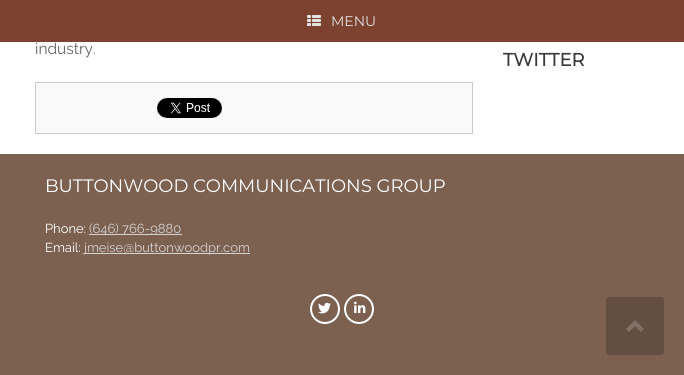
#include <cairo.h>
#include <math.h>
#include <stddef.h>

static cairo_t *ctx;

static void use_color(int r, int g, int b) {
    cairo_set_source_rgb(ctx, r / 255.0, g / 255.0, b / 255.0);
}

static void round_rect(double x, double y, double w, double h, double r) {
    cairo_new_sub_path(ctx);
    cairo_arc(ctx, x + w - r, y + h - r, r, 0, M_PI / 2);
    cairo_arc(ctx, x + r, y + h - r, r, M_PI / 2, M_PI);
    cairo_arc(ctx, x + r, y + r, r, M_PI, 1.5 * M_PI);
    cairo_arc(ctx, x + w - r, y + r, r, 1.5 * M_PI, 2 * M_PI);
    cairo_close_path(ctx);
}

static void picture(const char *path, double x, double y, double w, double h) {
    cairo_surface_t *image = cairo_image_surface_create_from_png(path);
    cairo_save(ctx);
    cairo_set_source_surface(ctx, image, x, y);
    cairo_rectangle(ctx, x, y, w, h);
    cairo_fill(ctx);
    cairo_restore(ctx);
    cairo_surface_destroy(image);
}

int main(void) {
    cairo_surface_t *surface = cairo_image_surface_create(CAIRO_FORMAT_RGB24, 684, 375);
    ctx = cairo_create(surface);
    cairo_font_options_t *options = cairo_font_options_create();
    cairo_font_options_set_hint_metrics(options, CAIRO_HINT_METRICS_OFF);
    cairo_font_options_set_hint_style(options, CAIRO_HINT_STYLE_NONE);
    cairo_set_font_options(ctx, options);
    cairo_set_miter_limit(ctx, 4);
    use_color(124, 97, 81);
    cairo_paint(ctx);
    use_color(124, 65, 47);
    cairo_rectangle(ctx, 0, 0, 684, 42);
    cairo_fill(ctx);
    picture("img1.png", 307, 15, 14, 11);
    cairo_select_font_face(ctx, "Montserrat Thin", CAIRO_FONT_SLANT_NORMAL, CAIRO_FONT_WEIGHT_NORMAL);
    cairo_set_font_size(ctx, 14);
    use_color(226, 226, 226);
    cairo_move_to(ctx, 331, 26);
    cairo_show_text(ctx, "MENU");
    use_color(255, 255, 255);
    cairo_rectangle(ctx, 0, 42, 684, 112);
    cairo_fill(ctx);
    cairo_select_font_face(ctx, "Raleway Thin", CAIRO_FONT_SLANT_NORMAL, CAIRO_FONT_WEIGHT_NORMAL);
    cairo_set_font_size(ctx, 15.5);
    use_color(102, 102, 102);
    cairo_move_to(ctx, 35, 54);
    cairo_show_text(ctx, "industry.");
    use_color(249, 249, 249);
    cairo_rectangle(ctx, 35.5, 82.5, 437, 51);
    cairo_fill_preserve(ctx);
    use_color(204, 204, 204);
    cairo_set_line_width(ctx, 1);
    cairo_stroke(ctx);
    picture("img2.png", 157, 98, 65, 20);
    cairo_select_font_face(ctx, "Montserrat", CAIRO_FONT_SLANT_NORMAL, CAIRO_FONT_WEIGHT_BOLD);
    cairo_set_font_size(ctx, 18);
    use_color(59, 59, 59);
    cairo_move_to(ctx, 503, 66);
    cairo_show_text(ctx, "TWITTER");
    cairo_select_font_face(ctx, "Montserrat Thin", CAIRO_FONT_SLANT_NORMAL, CAIRO_FONT_WEIGHT_NORMAL);
    use_color(255, 255, 255);
    cairo_move_to(ctx, 45, 192);
    cairo_show_text(ctx, "BUTTONWOOD COMMUNICATIONS GROUP");
    cairo_select_font_face(ctx, "Raleway Thin", CAIRO_FONT_SLANT_NORMAL, CAIRO_FONT_WEIGHT_NORMAL);
    cairo_set_font_size(ctx, 13);
    cairo_move_to(ctx, 45, 233);
    cairo_show_text(ctx, "Phone:");
    use_color(211, 211, 211);
    cairo_rectangle(ctx, 89, 234, 93, 1);
    cairo_fill(ctx);
    cairo_move_to(ctx, 89, 233);
    cairo_show_text(ctx, "(646) 766-9880");
    use_color(255, 255, 255);
    cairo_move_to(ctx, 45, 252);
    cairo_show_text(ctx, "Email:");
    use_color(211, 211, 211);
    cairo_rectangle(ctx, 84, 253, 166, 1);
    cairo_fill(ctx);
    cairo_move_to(ctx, 84, 252);
    cairo_show_text(ctx, "jmeise@buttonwoodpr.com");
    cairo_new_path(ctx);
    cairo_arc(ctx, 325, 309, 14, 0, 2 * M_PI);
    use_color(255, 255, 255);
    cairo_set_line_width(ctx, 2);
    cairo_stroke(ctx);
    picture("img3.png", 318, 302, 13, 12);
    cairo_arc(ctx, 359, 309, 14, 0, 2 * M_PI);
    cairo_stroke(ctx);
    picture("img4.png", 354, 301, 12, 12);
    use_color(99, 78, 65);
    round_rect(606, 297, 58, 58, 3);
    cairo_fill(ctx);
    use_color(130, 113, 103);
    cairo_new_path(ctx);
    cairo_move_to(ctx, 644, 329);
    cairo_line_to(ctx, 635, 320);
    cairo_line_to(ctx, 626, 329);
    cairo_line_to(ctx, 629, 332);
    cairo_line_to(ctx, 635, 326);
    cairo_line_to(ctx, 641, 332);
    cairo_close_path(ctx);
    cairo_fill(ctx);
    cairo_surface_write_to_png(surface, "result.png");
    cairo_font_options_destroy(options);
    cairo_destroy(ctx);
    cairo_surface_destroy(surface);
    return 0;
}
